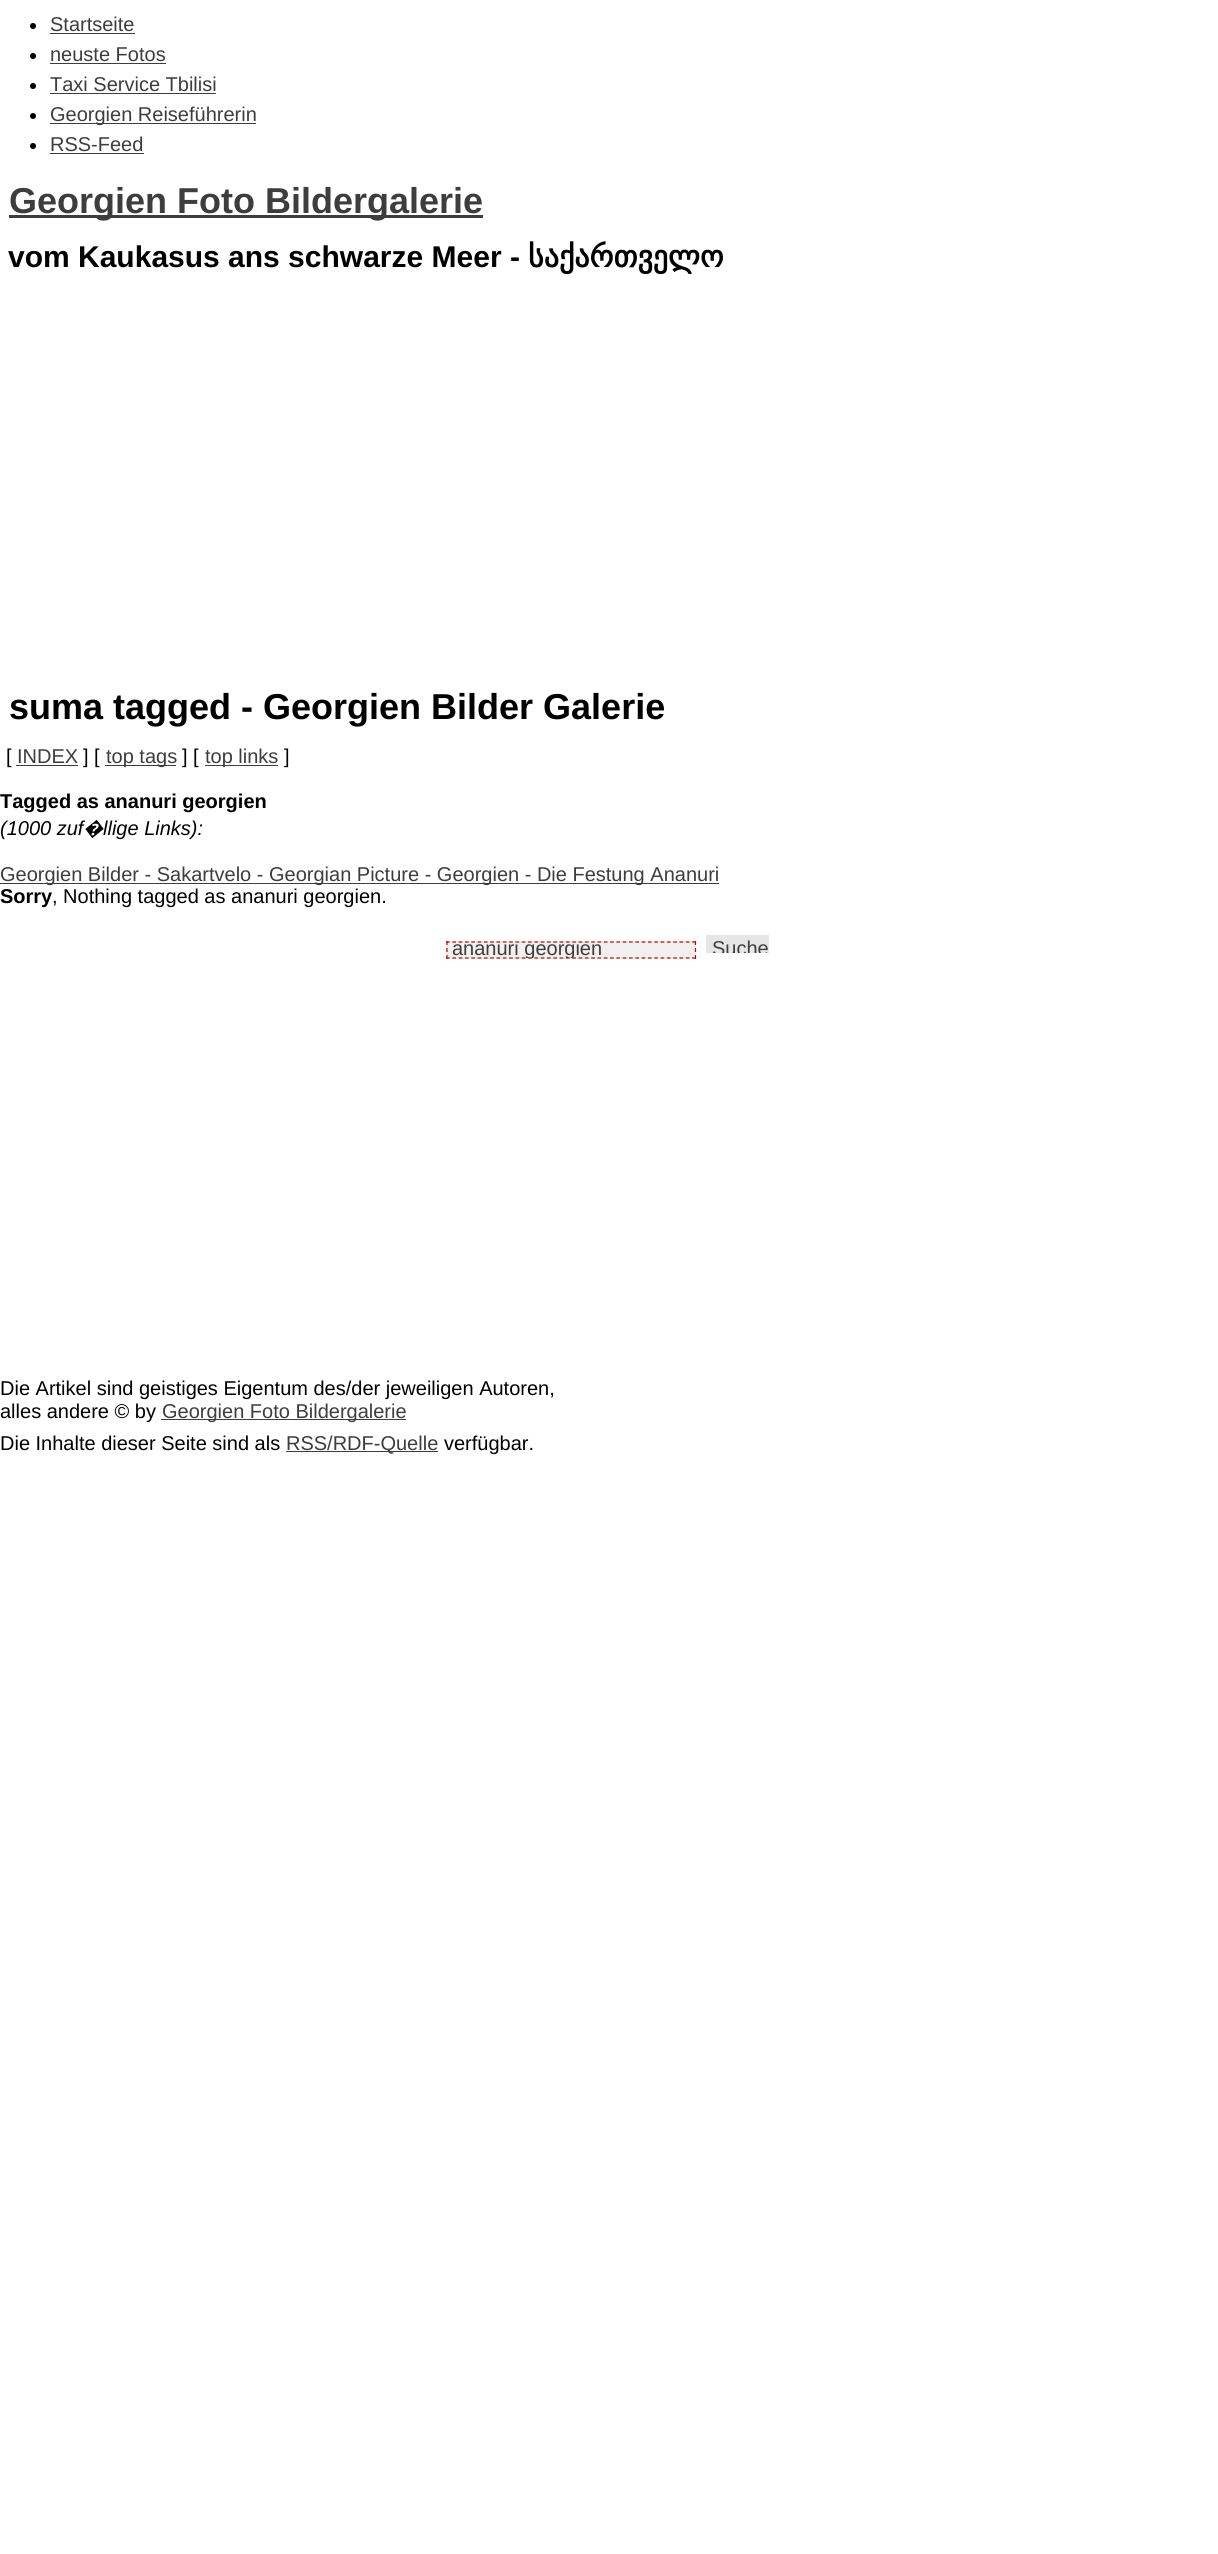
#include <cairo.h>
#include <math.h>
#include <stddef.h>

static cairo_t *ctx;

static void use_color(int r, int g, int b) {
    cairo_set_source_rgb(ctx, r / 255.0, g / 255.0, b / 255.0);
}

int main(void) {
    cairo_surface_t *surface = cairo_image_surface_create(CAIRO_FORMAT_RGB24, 1218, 2554);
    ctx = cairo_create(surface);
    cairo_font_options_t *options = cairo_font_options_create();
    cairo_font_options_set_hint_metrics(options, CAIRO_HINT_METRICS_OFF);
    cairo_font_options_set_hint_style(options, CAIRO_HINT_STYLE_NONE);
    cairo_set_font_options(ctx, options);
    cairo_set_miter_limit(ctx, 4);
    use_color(255, 255, 255);
    cairo_paint(ctx);
    use_color(0, 0, 0);
    cairo_arc(ctx, 33, 26, 3, 0, 2 * M_PI);
    cairo_fill(ctx);
    cairo_select_font_face(ctx, "Liberation Sans", CAIRO_FONT_SLANT_NORMAL, CAIRO_FONT_WEIGHT_NORMAL);
    cairo_set_font_size(ctx, 20);
    use_color(61, 61, 61);
    cairo_move_to(ctx, 50, 31);
    cairo_show_text(ctx, "Startseite");
    cairo_rectangle(ctx, 50, 33, 85, 1);
    cairo_fill(ctx);
    use_color(0, 0, 0);
    cairo_arc(ctx, 33, 56, 3, 0, 2 * M_PI);
    cairo_fill(ctx);
    use_color(61, 61, 61);
    cairo_move_to(ctx, 50, 61);
    cairo_show_text(ctx, "neuste Fotos");
    cairo_rectangle(ctx, 50, 63, 116, 1);
    cairo_fill(ctx);
    use_color(0, 0, 0);
    cairo_arc(ctx, 33, 86, 3, 0, 2 * M_PI);
    cairo_fill(ctx);
    use_color(61, 61, 61);
    cairo_move_to(ctx, 50, 91);
    cairo_show_text(ctx, "Taxi Service Tbilisi");
    cairo_rectangle(ctx, 50, 93, 166, 1);
    cairo_fill(ctx);
    use_color(0, 0, 0);
    cairo_arc(ctx, 33, 116, 3, 0, 2 * M_PI);
    cairo_fill(ctx);
    use_color(61, 61, 61);
    cairo_rectangle(ctx, 50, 123, 206, 1);
    cairo_fill(ctx);
    cairo_move_to(ctx, 50, 121);
    cairo_show_text(ctx, "Georgien Reiseführerin");
    use_color(0, 0, 0);
    cairo_new_path(ctx);
    cairo_arc(ctx, 33, 146, 3, 0, 2 * M_PI);
    cairo_fill(ctx);
    use_color(61, 61, 61);
    cairo_move_to(ctx, 50, 151);
    cairo_show_text(ctx, "RSS-Feed");
    cairo_rectangle(ctx, 50, 153, 94, 1);
    cairo_fill(ctx);
    cairo_rectangle(ctx, 9, 215, 474, 3);
    cairo_fill(ctx);
    cairo_select_font_face(ctx, "Liberation Sans", CAIRO_FONT_SLANT_NORMAL, CAIRO_FONT_WEIGHT_BOLD);
    cairo_set_font_size(ctx, 36);
    cairo_move_to(ctx, 9, 213);
    cairo_show_text(ctx, "Georgien Foto Bildergalerie");
    cairo_set_font_size(ctx, 30);
    use_color(0, 0, 0);
    cairo_move_to(ctx, 8, 267);
    cairo_show_text(ctx, "vom Kaukasus ans schwarze Meer -");
    cairo_select_font_face(ctx, "DejaVu Sans", CAIRO_FONT_SLANT_NORMAL, CAIRO_FONT_WEIGHT_BOLD);
    cairo_move_to(ctx, 528, 267);
    cairo_show_text(ctx, "საქართველო");
    cairo_select_font_face(ctx, "Liberation Sans", CAIRO_FONT_SLANT_NORMAL, CAIRO_FONT_WEIGHT_BOLD);
    cairo_set_font_size(ctx, 36);
    cairo_move_to(ctx, 9, 719);
    cairo_show_text(ctx, "suma tagged - Georgien Bilder Galerie");
    cairo_select_font_face(ctx, "Liberation Sans", CAIRO_FONT_SLANT_NORMAL, CAIRO_FONT_WEIGHT_NORMAL);
    cairo_set_font_size(ctx, 20);
    cairo_move_to(ctx, 6, 763);
    cairo_show_text(ctx, "[");
    use_color(61, 61, 61);
    cairo_move_to(ctx, 17, 763);
    cairo_show_text(ctx, "INDEX");
    cairo_rectangle(ctx, 16, 765, 62, 1);
    cairo_fill(ctx);
    use_color(0, 0, 0);
    cairo_move_to(ctx, 83, 763);
    cairo_show_text(ctx, "] [");
    use_color(61, 61, 61);
    cairo_rectangle(ctx, 105, 765, 71, 1);
    cairo_fill(ctx);
    cairo_move_to(ctx, 106, 763);
    cairo_show_text(ctx, "top tags");
    use_color(0, 0, 0);
    cairo_move_to(ctx, 182, 763);
    cairo_show_text(ctx, "] [");
    use_color(61, 61, 61);
    cairo_rectangle(ctx, 205, 765, 73, 1);
    cairo_fill(ctx);
    cairo_move_to(ctx, 205, 763);
    cairo_show_text(ctx, "top links");
    use_color(0, 0, 0);
    cairo_move_to(ctx, 284, 763);
    cairo_show_text(ctx, "]");
    cairo_select_font_face(ctx, "Liberation Sans", CAIRO_FONT_SLANT_NORMAL, CAIRO_FONT_WEIGHT_BOLD);
    cairo_move_to(ctx, 0, 808);
    cairo_show_text(ctx, "Tagged as ananuri georgien");
    cairo_select_font_face(ctx, "Liberation Sans", CAIRO_FONT_SLANT_ITALIC, CAIRO_FONT_WEIGHT_NORMAL);
    cairo_move_to(ctx, 0, 835);
    cairo_show_text(ctx, "(1000 zuf");
    cairo_select_font_face(ctx, "Noto Sans", CAIRO_FONT_SLANT_ITALIC, CAIRO_FONT_WEIGHT_NORMAL);
    cairo_move_to(ctx, 83, 835);
    cairo_show_text(ctx, "�");
    cairo_select_font_face(ctx, "Liberation Sans", CAIRO_FONT_SLANT_ITALIC, CAIRO_FONT_WEIGHT_NORMAL);
    cairo_move_to(ctx, 103, 835);
    cairo_show_text(ctx, "llige Links):");
    use_color(61, 61, 61);
    cairo_rectangle(ctx, 0, 883, 719, 1);
    cairo_fill(ctx);
    cairo_select_font_face(ctx, "Liberation Sans", CAIRO_FONT_SLANT_NORMAL, CAIRO_FONT_WEIGHT_NORMAL);
    cairo_move_to(ctx, 0, 881);
    cairo_show_text(ctx, "Georgien Bilder - Sakartvelo - Georgian Picture - Georgien - Die Festung Ananuri");
    cairo_select_font_face(ctx, "Liberation Sans", CAIRO_FONT_SLANT_NORMAL, CAIRO_FONT_WEIGHT_BOLD);
    use_color(0, 0, 0);
    cairo_move_to(ctx, 0, 903);
    cairo_show_text(ctx, "Sorry");
    cairo_select_font_face(ctx, "Liberation Sans", CAIRO_FONT_SLANT_NORMAL, CAIRO_FONT_WEIGHT_NORMAL);
    cairo_move_to(ctx, 52, 903);
    cairo_show_text(ctx, ", Nothing tagged as ananuri georgien.");
    use_color(240, 240, 240);
    cairo_rectangle(ctx, 446, 941, 250, 18);
    cairo_fill(ctx);
    cairo_new_path(ctx);
    cairo_move_to(ctx, 446, 942);
    cairo_line_to(ctx, 696, 942);
    use_color(204, 0, 0);
    cairo_set_line_width(ctx, 1.2);
    cairo_set_dash(ctx, (double[]){3.75, 2.56}, 2, 0);
    cairo_stroke(ctx);
    cairo_new_path(ctx);
    cairo_move_to(ctx, 695.5, 941);
    cairo_line_to(ctx, 695.5, 945);
    cairo_move_to(ctx, 695.5, 948);
    cairo_line_to(ctx, 695.5, 952);
    cairo_move_to(ctx, 695.5, 955);
    cairo_line_to(ctx, 695.5, 959);
    cairo_set_dash(ctx, NULL, 0, 0);
    cairo_stroke(ctx);
    cairo_new_path(ctx);
    cairo_move_to(ctx, 446, 958);
    cairo_line_to(ctx, 696, 958);
    cairo_set_dash(ctx, (double[]){3.75, 2.56}, 2, 0);
    cairo_stroke(ctx);
    cairo_new_path(ctx);
    cairo_move_to(ctx, 447, 941);
    cairo_line_to(ctx, 447, 945);
    cairo_move_to(ctx, 447, 948);
    cairo_line_to(ctx, 447, 952);
    cairo_move_to(ctx, 447, 955);
    cairo_line_to(ctx, 447, 959);
    cairo_set_dash(ctx, NULL, 0, 0);
    cairo_stroke(ctx);
    cairo_save(ctx);
    cairo_rectangle(ctx, 451, 943, 240, 15);
    cairo_clip(ctx);
    use_color(61, 61, 61);
    cairo_move_to(ctx, 452, 955);
    cairo_show_text(ctx, "ananuri georgien");
    cairo_restore(ctx);
    use_color(230, 230, 230);
    cairo_rectangle(ctx, 706, 935, 63, 18);
    cairo_fill(ctx);
    cairo_save(ctx);
    cairo_rectangle(ctx, 706, 935, 63, 18);
    cairo_clip(ctx);
    use_color(61, 61, 61);
    cairo_move_to(ctx, 712, 955);
    cairo_show_text(ctx, "Suche");
    cairo_restore(ctx);
    use_color(0, 0, 0);
    cairo_move_to(ctx, 0, 1395);
    cairo_show_text(ctx, "Die Artikel sind geistiges Eigentum des/der jeweiligen Autoren,");
    cairo_move_to(ctx, 0, 1418);
    cairo_show_text(ctx, "alles andere © by");
    use_color(61, 61, 61);
    cairo_rectangle(ctx, 161, 1419, 245, 1);
    cairo_fill(ctx);
    cairo_move_to(ctx, 162, 1418);
    cairo_show_text(ctx, "Georgien Foto Bildergalerie");
    use_color(0, 0, 0);
    cairo_move_to(ctx, 0, 1450);
    cairo_show_text(ctx, "Die Inhalte dieser Seite sind als");
    use_color(61, 61, 61);
    cairo_rectangle(ctx, 286, 1451, 152, 1);
    cairo_fill(ctx);
    cairo_move_to(ctx, 286, 1450);
    cairo_show_text(ctx, "RSS/RDF-Quelle");
    use_color(0, 0, 0);
    cairo_move_to(ctx, 444, 1450);
    cairo_show_text(ctx, "verfügbar.");
    cairo_surface_write_to_png(surface, "result.png");
    cairo_font_options_destroy(options);
    cairo_destroy(ctx);
    cairo_surface_destroy(surface);
    return 0;
}
